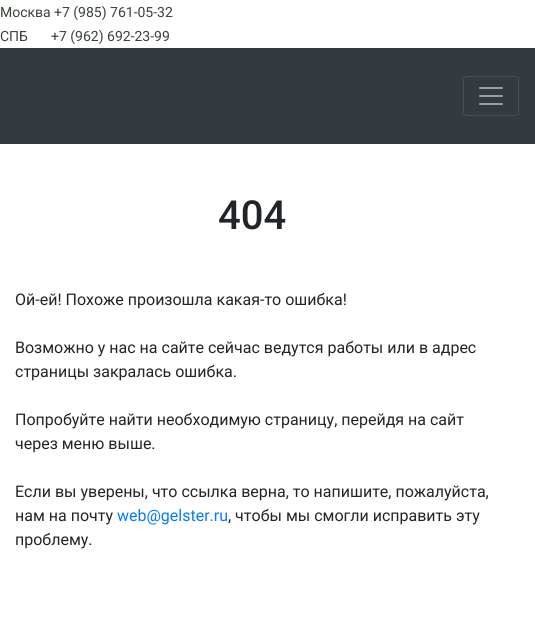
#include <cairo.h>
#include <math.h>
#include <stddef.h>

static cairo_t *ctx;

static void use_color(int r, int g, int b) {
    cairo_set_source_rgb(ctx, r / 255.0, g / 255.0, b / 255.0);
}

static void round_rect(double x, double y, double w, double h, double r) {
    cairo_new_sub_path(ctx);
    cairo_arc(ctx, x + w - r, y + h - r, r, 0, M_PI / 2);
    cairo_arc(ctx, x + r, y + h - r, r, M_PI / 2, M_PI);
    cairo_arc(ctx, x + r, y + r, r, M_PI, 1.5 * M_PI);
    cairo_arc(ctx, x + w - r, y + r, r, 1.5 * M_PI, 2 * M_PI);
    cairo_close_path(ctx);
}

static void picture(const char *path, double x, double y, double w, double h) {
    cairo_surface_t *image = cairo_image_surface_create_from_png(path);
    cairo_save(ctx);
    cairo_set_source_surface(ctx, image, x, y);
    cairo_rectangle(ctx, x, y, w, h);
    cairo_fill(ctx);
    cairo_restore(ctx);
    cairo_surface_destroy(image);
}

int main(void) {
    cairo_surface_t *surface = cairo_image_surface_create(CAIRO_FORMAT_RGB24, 535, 629);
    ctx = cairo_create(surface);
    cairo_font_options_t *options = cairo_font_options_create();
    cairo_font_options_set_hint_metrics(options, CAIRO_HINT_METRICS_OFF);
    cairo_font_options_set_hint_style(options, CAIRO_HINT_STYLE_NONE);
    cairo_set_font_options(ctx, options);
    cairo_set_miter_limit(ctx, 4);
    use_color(255, 255, 255);
    cairo_paint(ctx);
    cairo_select_font_face(ctx, "Roboto", CAIRO_FONT_SLANT_NORMAL, CAIRO_FONT_WEIGHT_NORMAL);
    cairo_set_font_size(ctx, 14);
    use_color(55, 68, 54);
    cairo_move_to(ctx, 0, 17);
    cairo_show_text(ctx, "Москва");
    cairo_move_to(ctx, 54, 17);
    cairo_show_text(ctx, "+7 (985) 761-05-32");
    cairo_move_to(ctx, 0, 41);
    cairo_show_text(ctx, "СПБ");
    cairo_move_to(ctx, 51, 41);
    cairo_show_text(ctx, "+7 (962) 692-23-99");
    use_color(52, 58, 64);
    cairo_rectangle(ctx, 0, 48, 535, 96);
    cairo_fill(ctx);
    round_rect(463.5, 76.5, 55, 39, 3.5);
    use_color(72, 78, 83);
    cairo_set_line_width(ctx, 1);
    cairo_stroke(ctx);
    picture("img1.png", 479, 87, 24, 18);
    cairo_select_font_face(ctx, "Roboto Medium", CAIRO_FONT_SLANT_NORMAL, CAIRO_FONT_WEIGHT_NORMAL);
    cairo_set_font_size(ctx, 40);
    use_color(33, 37, 41);
    cairo_move_to(ctx, 218, 229);
    cairo_show_text(ctx, "404");
    cairo_select_font_face(ctx, "Roboto", CAIRO_FONT_SLANT_NORMAL, CAIRO_FONT_WEIGHT_NORMAL);
    cairo_set_font_size(ctx, 16);
    cairo_move_to(ctx, 15, 305);
    cairo_show_text(ctx, "Ой-ей! Похоже произошла какая-то ошибка!");
    cairo_move_to(ctx, 15, 353);
    cairo_show_text(ctx, "Возможно у нас на сайте сейчас ведутся работы или в адрес");
    cairo_move_to(ctx, 15, 377);
    cairo_show_text(ctx, "страницы закралась ошибка.");
    cairo_move_to(ctx, 15, 425);
    cairo_show_text(ctx, "Попробуйте найти необходимую страницу, перейдя на сайт");
    cairo_move_to(ctx, 15, 449);
    cairo_show_text(ctx, "через меню выше.");
    cairo_move_to(ctx, 15, 497);
    cairo_show_text(ctx, "Если вы уверены, что ссылка верна, то напишите, пожалуйста,");
    cairo_move_to(ctx, 15, 521);
    cairo_show_text(ctx, "нам на почту");
    use_color(0, 123, 255);
    cairo_move_to(ctx, 117, 521);
    cairo_show_text(ctx, "web@gelster.ru");
    use_color(33, 37, 41);
    cairo_move_to(ctx, 228, 521);
    cairo_show_text(ctx, ", чтобы мы смогли исправить эту");
    cairo_move_to(ctx, 15, 545);
    cairo_show_text(ctx, "проблему.");
    cairo_surface_write_to_png(surface, "result.png");
    cairo_font_options_destroy(options);
    cairo_destroy(ctx);
    cairo_surface_destroy(surface);
    return 0;
}
